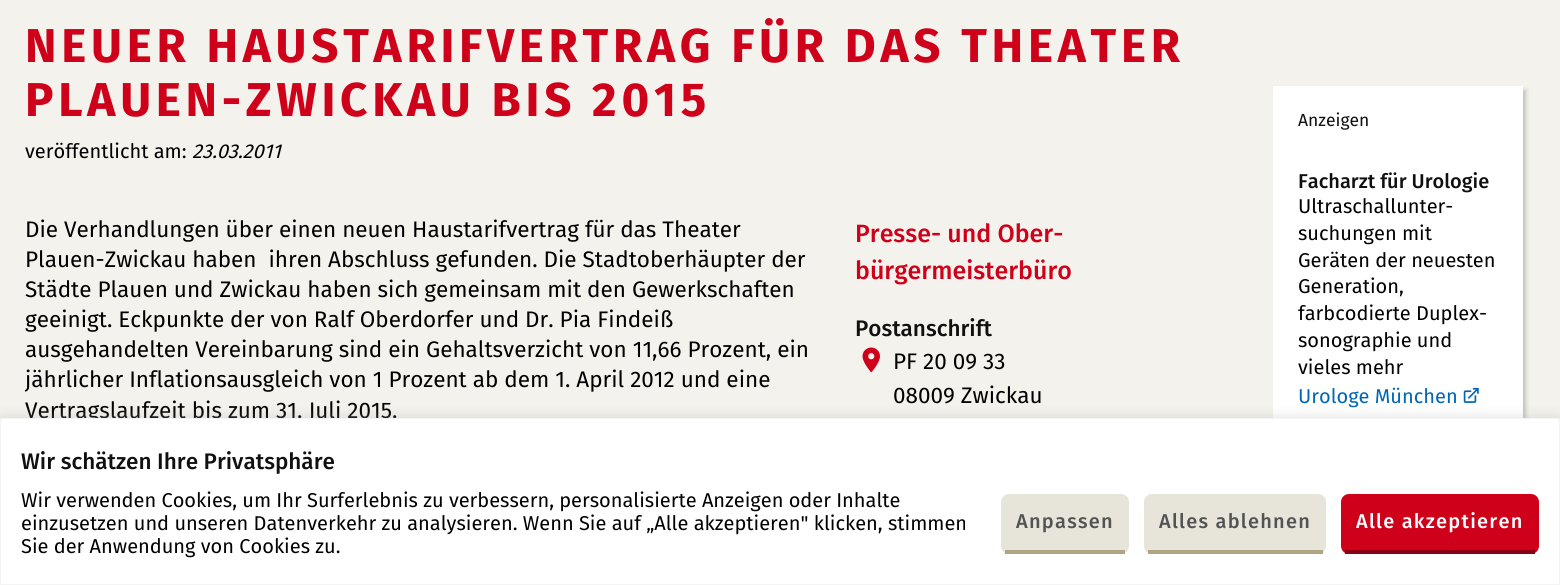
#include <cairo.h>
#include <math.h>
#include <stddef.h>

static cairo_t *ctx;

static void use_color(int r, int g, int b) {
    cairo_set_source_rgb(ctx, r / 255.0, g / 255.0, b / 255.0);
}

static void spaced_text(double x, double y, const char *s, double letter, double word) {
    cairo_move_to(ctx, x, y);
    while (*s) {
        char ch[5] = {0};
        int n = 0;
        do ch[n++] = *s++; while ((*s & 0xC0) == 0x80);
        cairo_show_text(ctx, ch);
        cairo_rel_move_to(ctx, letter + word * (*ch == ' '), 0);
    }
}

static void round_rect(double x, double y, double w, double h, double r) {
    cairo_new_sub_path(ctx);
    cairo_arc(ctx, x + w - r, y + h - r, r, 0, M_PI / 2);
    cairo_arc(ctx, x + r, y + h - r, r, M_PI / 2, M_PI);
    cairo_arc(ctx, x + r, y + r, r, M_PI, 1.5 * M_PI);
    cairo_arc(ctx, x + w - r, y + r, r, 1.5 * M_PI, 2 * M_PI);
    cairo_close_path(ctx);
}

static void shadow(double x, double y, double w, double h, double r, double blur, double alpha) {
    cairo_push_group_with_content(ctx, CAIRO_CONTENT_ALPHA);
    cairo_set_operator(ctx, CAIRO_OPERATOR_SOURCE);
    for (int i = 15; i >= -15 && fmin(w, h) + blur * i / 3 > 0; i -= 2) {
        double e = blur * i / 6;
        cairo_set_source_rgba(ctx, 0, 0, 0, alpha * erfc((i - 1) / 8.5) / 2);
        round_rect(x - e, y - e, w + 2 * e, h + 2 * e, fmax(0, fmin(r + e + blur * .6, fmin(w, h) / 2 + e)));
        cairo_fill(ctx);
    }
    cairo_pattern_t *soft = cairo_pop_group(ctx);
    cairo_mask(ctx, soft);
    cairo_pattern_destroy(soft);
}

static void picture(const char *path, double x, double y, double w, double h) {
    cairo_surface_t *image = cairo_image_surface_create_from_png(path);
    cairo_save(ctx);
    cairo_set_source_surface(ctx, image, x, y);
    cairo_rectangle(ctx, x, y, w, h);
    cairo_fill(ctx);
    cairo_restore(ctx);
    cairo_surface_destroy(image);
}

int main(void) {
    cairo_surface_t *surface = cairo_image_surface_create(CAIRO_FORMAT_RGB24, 1560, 585);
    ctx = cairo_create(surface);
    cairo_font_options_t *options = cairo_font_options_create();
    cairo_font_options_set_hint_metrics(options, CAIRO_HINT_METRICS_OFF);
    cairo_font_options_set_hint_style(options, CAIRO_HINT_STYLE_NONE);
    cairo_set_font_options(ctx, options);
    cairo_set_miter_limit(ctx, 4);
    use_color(243, 242, 236);
    cairo_paint(ctx);
    cairo_select_font_face(ctx, "Fira Sans", CAIRO_FONT_SLANT_NORMAL, CAIRO_FONT_WEIGHT_BOLD);
    cairo_set_font_size(ctx, 47.5);
    use_color(207, 0, 25);
    spaced_text(25, 62, "NEUER HAUSTARIFVERTRAG FÜR DAS THEATER", 4.75, 0);
    spaced_text(25, 116, "PLAUEN-ZWICKAU BIS 2015", 4.75, 0);
    cairo_select_font_face(ctx, "Fira Sans", CAIRO_FONT_SLANT_NORMAL, CAIRO_FONT_WEIGHT_NORMAL);
    cairo_set_font_size(ctx, 20);
    use_color(0, 0, 0);
    cairo_move_to(ctx, 25, 158);
    cairo_show_text(ctx, "veröffentlicht am:");
    cairo_select_font_face(ctx, "Fira Sans", CAIRO_FONT_SLANT_ITALIC, CAIRO_FONT_WEIGHT_NORMAL);
    cairo_move_to(ctx, 192, 158);
    cairo_show_text(ctx, "23.03.2011");
    cairo_select_font_face(ctx, "Fira Sans", CAIRO_FONT_SLANT_NORMAL, CAIRO_FONT_WEIGHT_NORMAL);
    cairo_set_font_size(ctx, 22.5);
    cairo_move_to(ctx, 25, 237);
    cairo_show_text(ctx, "Die Verhandlungen über einen neuen Haustarifvertrag für das Theater");
    cairo_move_to(ctx, 25, 267);
    cairo_show_text(ctx, "Plauen-Zwickau haben  ihren Abschluss gefunden. Die Stadtoberhäupter der");
    cairo_move_to(ctx, 25, 297);
    cairo_show_text(ctx, "Städte Plauen und Zwickau haben sich gemeinsam mit den Gewerkschaften");
    cairo_move_to(ctx, 25, 327);
    cairo_show_text(ctx, "geeinigt. Eckpunkte der von Ralf Oberdorfer und Dr. Pia Findeiß");
    cairo_move_to(ctx, 25, 357);
    cairo_show_text(ctx, "ausgehandelten Vereinbarung sind ein Gehaltsverzicht von 11,66 Prozent, ein");
    cairo_move_to(ctx, 25, 387);
    cairo_show_text(ctx, "jährlicher Inflationsausgleich von 1 Prozent ab dem 1. April 2012 und eine");
    cairo_move_to(ctx, 25, 418);
    cairo_show_text(ctx, "Vertragslaufzeit bis zum 31. Juli 2015.");
    cairo_select_font_face(ctx, "Fira Sans Medium", CAIRO_FONT_SLANT_NORMAL, CAIRO_FONT_WEIGHT_NORMAL);
    cairo_set_font_size(ctx, 25);
    use_color(207, 0, 25);
    cairo_move_to(ctx, 855, 242);
    cairo_show_text(ctx, "Presse- und Ober-");
    cairo_move_to(ctx, 855, 279);
    cairo_show_text(ctx, "bürgermeisterbüro");
    cairo_set_font_size(ctx, 22.5);
    use_color(16, 16, 16);
    cairo_move_to(ctx, 855, 336);
    cairo_show_text(ctx, "Postanschrift");
    picture("img1.png", 862, 347, 18, 26);
    cairo_select_font_face(ctx, "Fira Sans", CAIRO_FONT_SLANT_NORMAL, CAIRO_FONT_WEIGHT_NORMAL);
    use_color(0, 0, 0);
    cairo_move_to(ctx, 893, 369);
    cairo_show_text(ctx, "PF 20 09 33");
    cairo_move_to(ctx, 893, 403);
    cairo_show_text(ctx, "08009 Zwickau");
    use_color(0, 0, 0);
    shadow(1276, 90, 250, 348, 0, 2, 0.2);
    use_color(255, 255, 255);
    cairo_rectangle(ctx, 1273, 86, 250, 332);
    cairo_fill(ctx);
    cairo_set_font_size(ctx, 17.5);
    use_color(16, 16, 16);
    cairo_move_to(ctx, 1298, 126);
    cairo_show_text(ctx, "Anzeigen");
    cairo_select_font_face(ctx, "Fira Sans Medium", CAIRO_FONT_SLANT_NORMAL, CAIRO_FONT_WEIGHT_NORMAL);
    cairo_set_font_size(ctx, 20);
    cairo_move_to(ctx, 1298, 188);
    cairo_show_text(ctx, "Facharzt für Urologie");
    cairo_select_font_face(ctx, "Fira Sans", CAIRO_FONT_SLANT_NORMAL, CAIRO_FONT_WEIGHT_NORMAL);
    use_color(0, 0, 0);
    cairo_move_to(ctx, 1298, 213);
    cairo_show_text(ctx, "Ultraschallunter-");
    cairo_move_to(ctx, 1298, 240);
    cairo_show_text(ctx, "suchungen mit");
    cairo_move_to(ctx, 1298, 267);
    cairo_show_text(ctx, "Geräten der neuesten");
    cairo_move_to(ctx, 1298, 293);
    cairo_show_text(ctx, "Generation,");
    cairo_move_to(ctx, 1298, 320);
    cairo_show_text(ctx, "farbcodierte Duplex-");
    cairo_move_to(ctx, 1298, 347);
    cairo_show_text(ctx, "sonographie und");
    cairo_move_to(ctx, 1298, 374);
    cairo_show_text(ctx, "vieles mehr");
    use_color(0, 102, 180);
    cairo_move_to(ctx, 1298, 403);
    cairo_show_text(ctx, "Urologe München");
    picture("img2.png", 1463, 387, 16, 16);
    use_color(172, 171, 171);
    shadow(0, 416, 1560, 168, 0, 6, 0.3);
    use_color(255, 255, 255);
    cairo_rectangle(ctx, 0.5, 418.5, 1559, 166);
    cairo_fill_preserve(ctx);
    use_color(244, 244, 244);
    cairo_set_line_width(ctx, 1);
    cairo_stroke(ctx);
    cairo_select_font_face(ctx, "Fira Sans Medium", CAIRO_FONT_SLANT_NORMAL, CAIRO_FONT_WEIGHT_NORMAL);
    cairo_set_font_size(ctx, 22.5);
    use_color(16, 16, 16);
    cairo_move_to(ctx, 21, 469);
    cairo_show_text(ctx, "Wir schätzen Ihre Privatsphäre");
    cairo_select_font_face(ctx, "Fira Sans", CAIRO_FONT_SLANT_NORMAL, CAIRO_FONT_WEIGHT_NORMAL);
    cairo_set_font_size(ctx, 20);
    use_color(0, 0, 0);
    cairo_move_to(ctx, 21, 507);
    cairo_show_text(ctx, "Wir verwenden Cookies, um Ihr Surferlebnis zu verbessern, personalisierte Anzeigen oder Inhalte");
    cairo_move_to(ctx, 21, 530);
    cairo_show_text(ctx, "einzusetzen und unseren Datenverkehr zu analysieren. Wenn Sie auf „Alle akzeptieren\" klicken, stimmen");
    cairo_move_to(ctx, 21, 553);
    cairo_show_text(ctx, "Sie der Anwendung von Cookies zu.");
    use_color(231, 228, 218);
    round_rect(1001, 494, 128, 60, 8);
    cairo_fill(ctx);
    use_color(175, 165, 130);
    cairo_rectangle(ctx, 1005, 550, 120, 4);
    cairo_fill(ctx);
    cairo_select_font_face(ctx, "Fira Sans Medium", CAIRO_FONT_SLANT_NORMAL, CAIRO_FONT_WEIGHT_NORMAL);
    use_color(83, 83, 83);
    spaced_text(1016, 528, "Anpassen", 1.25, 0);
    use_color(231, 228, 218);
    round_rect(1144, 494, 182, 60, 8);
    cairo_fill(ctx);
    use_color(175, 165, 130);
    cairo_rectangle(ctx, 1148, 550, 175, 4);
    cairo_fill(ctx);
    use_color(83, 83, 83);
    spaced_text(1159, 528, "Alles ablehnen", 1.25, 0);
    use_color(207, 0, 25);
    round_rect(1341, 494, 198, 60, 8);
    cairo_fill(ctx);
    use_color(137, 0, 21);
    cairo_rectangle(ctx, 1345, 550, 190, 4);
    cairo_fill(ctx);
    use_color(255, 255, 255);
    spaced_text(1356, 528, "Alle akzeptieren", 1.25, 0);
    cairo_surface_write_to_png(surface, "result.png");
    cairo_font_options_destroy(options);
    cairo_destroy(ctx);
    cairo_surface_destroy(surface);
    return 0;
}
